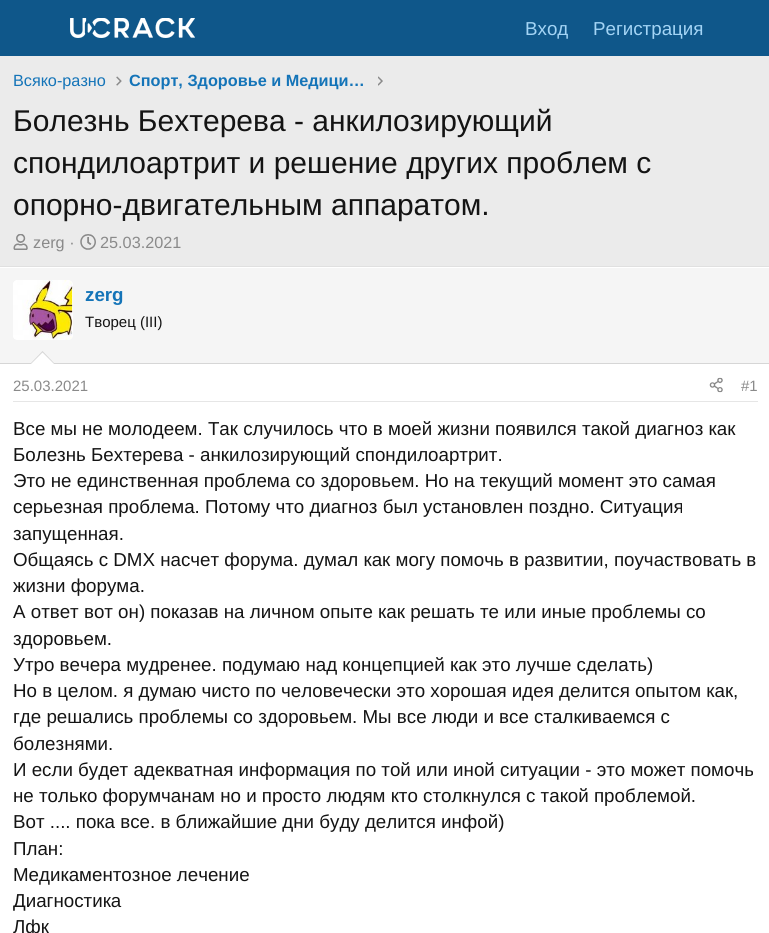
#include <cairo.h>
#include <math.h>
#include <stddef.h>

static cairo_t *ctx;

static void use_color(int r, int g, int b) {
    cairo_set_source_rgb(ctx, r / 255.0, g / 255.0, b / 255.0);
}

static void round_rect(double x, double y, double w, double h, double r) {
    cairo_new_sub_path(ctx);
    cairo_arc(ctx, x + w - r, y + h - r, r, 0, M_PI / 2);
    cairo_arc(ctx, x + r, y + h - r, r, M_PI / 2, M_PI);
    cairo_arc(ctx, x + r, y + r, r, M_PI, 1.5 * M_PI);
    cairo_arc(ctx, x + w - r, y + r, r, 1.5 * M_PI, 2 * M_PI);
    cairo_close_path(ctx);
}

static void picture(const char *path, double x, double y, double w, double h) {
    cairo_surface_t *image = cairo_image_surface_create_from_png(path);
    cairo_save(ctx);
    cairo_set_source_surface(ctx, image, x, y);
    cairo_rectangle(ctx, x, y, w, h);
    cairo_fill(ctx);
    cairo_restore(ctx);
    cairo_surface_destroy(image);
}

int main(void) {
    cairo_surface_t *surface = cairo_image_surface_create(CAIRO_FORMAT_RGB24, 769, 933);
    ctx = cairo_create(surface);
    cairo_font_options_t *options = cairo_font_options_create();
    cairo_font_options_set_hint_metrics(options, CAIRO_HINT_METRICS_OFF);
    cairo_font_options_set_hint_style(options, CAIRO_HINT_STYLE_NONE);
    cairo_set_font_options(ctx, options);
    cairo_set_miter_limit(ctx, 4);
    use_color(235, 235, 235);
    cairo_paint(ctx);
    use_color(15, 87, 138);
    cairo_rectangle(ctx, 0, 0, 769, 56);
    cairo_fill(ctx);
    picture("img1.png", 70, 18, 125, 20);
    cairo_select_font_face(ctx, "Liberation Sans", CAIRO_FONT_SLANT_NORMAL, CAIRO_FONT_WEIGHT_NORMAL);
    cairo_set_font_size(ctx, 18.75);
    use_color(163, 212, 245);
    cairo_move_to(ctx, 525, 35);
    cairo_show_text(ctx, "Вход");
    cairo_move_to(ctx, 593, 35);
    cairo_show_text(ctx, "Регистрация");
    cairo_set_font_size(ctx, 16.25);
    use_color(20, 116, 184);
    cairo_move_to(ctx, 13, 86);
    cairo_show_text(ctx, "Всяко-разно");
    picture("img2.png", 116, 76, 6, 10);
    cairo_select_font_face(ctx, "Liberation Sans", CAIRO_FONT_SLANT_NORMAL, CAIRO_FONT_WEIGHT_BOLD);
    cairo_move_to(ctx, 129, 86);
    cairo_show_text(ctx, "Спорт, Здоровье и Медици…");
    picture("img3.png", 378, 76, 5, 10);
    cairo_select_font_face(ctx, "Liberation Sans", CAIRO_FONT_SLANT_NORMAL, CAIRO_FONT_WEIGHT_NORMAL);
    cairo_set_font_size(ctx, 30);
    use_color(20, 20, 20);
    cairo_move_to(ctx, 13, 131);
    cairo_show_text(ctx, "Болезнь Бехтерева - анкилозирующий");
    cairo_move_to(ctx, 13, 173);
    cairo_show_text(ctx, "спондилоартрит и решение других проблем с");
    cairo_move_to(ctx, 13, 215);
    cairo_show_text(ctx, "опорно-двигательным аппаратом.");
    picture("img4.png", 13, 234, 15, 16);
    cairo_set_font_size(ctx, 16.25);
    use_color(138, 138, 138);
    cairo_move_to(ctx, 33, 248);
    cairo_show_text(ctx, "zerg ·");
    picture("img5.png", 80, 234, 16, 16);
    cairo_move_to(ctx, 100, 248);
    cairo_show_text(ctx, "25.03.2021");
    use_color(255, 255, 255);
    cairo_rectangle(ctx, 0, 267, 769, 666);
    cairo_fill(ctx);
    use_color(224, 224, 224);
    cairo_rectangle(ctx, 0, 266, 769, 1);
    cairo_fill(ctx);
    use_color(245, 245, 245);
    cairo_rectangle(ctx, 0, 268, 769, 95);
    cairo_fill(ctx);
    use_color(214, 214, 214);
    cairo_rectangle(ctx, 0, 363, 769, 1);
    cairo_fill(ctx);
    use_color(255, 255, 255);
    round_rect(13, 280, 60, 60, 5);
    cairo_fill(ctx);
    picture("img6.png", 13, 280, 60, 60);
    cairo_select_font_face(ctx, "Liberation Sans", CAIRO_FONT_SLANT_NORMAL, CAIRO_FONT_WEIGHT_BOLD);
    cairo_set_font_size(ctx, 18.75);
    use_color(20, 116, 184);
    cairo_move_to(ctx, 85, 301);
    cairo_show_text(ctx, "zerg");
    cairo_select_font_face(ctx, "Liberation Sans", CAIRO_FONT_SLANT_NORMAL, CAIRO_FONT_WEIGHT_NORMAL);
    cairo_set_font_size(ctx, 15);
    use_color(20, 20, 20);
    cairo_move_to(ctx, 85, 327);
    cairo_show_text(ctx, "Творец (III)");
    use_color(214, 214, 214);
    cairo_new_path(ctx);
    cairo_move_to(ctx, 55, 364);
    cairo_line_to(ctx, 30, 364);
    cairo_line_to(ctx, 42.5, 351);
    cairo_close_path(ctx);
    cairo_fill(ctx);
    use_color(255, 255, 255);
    cairo_new_path(ctx);
    cairo_move_to(ctx, 54, 364);
    cairo_line_to(ctx, 31, 364);
    cairo_line_to(ctx, 42.5, 352.5);
    cairo_close_path(ctx);
    cairo_fill(ctx);
    use_color(230, 230, 230);
    cairo_rectangle(ctx, 13, 401, 745, 1);
    cairo_fill(ctx);
    use_color(138, 138, 138);
    cairo_move_to(ctx, 13, 391);
    cairo_show_text(ctx, "25.03.2021");
    picture("img7.png", 709, 377, 14, 16);
    cairo_move_to(ctx, 741, 391);
    cairo_show_text(ctx, "#1");
    cairo_set_font_size(ctx, 18.75);
    use_color(20, 20, 20);
    cairo_move_to(ctx, 13, 435);
    cairo_show_text(ctx, "Все мы не молодеем. Так случилось что в моей жизни появился такой диагноз как");
    cairo_move_to(ctx, 13, 461);
    cairo_show_text(ctx, "Болезнь Бехтерева - анкилозирующий спондилоартрит.");
    cairo_move_to(ctx, 13, 487);
    cairo_show_text(ctx, "Это не единственная проблема со здоровьем. Но на текущий момент это самая");
    cairo_move_to(ctx, 13, 513);
    cairo_show_text(ctx, "серьезная проблема. Потому что диагноз был установлен поздно. Ситуация");
    cairo_move_to(ctx, 13, 540);
    cairo_show_text(ctx, "запущенная.");
    cairo_move_to(ctx, 13, 566);
    cairo_show_text(ctx, "Общаясь с DMX насчет форума. думал как могу помочь в развитии, поучаствовать в");
    cairo_move_to(ctx, 13, 592);
    cairo_show_text(ctx, "жизни форума.");
    cairo_move_to(ctx, 13, 618);
    cairo_show_text(ctx, "А ответ вот он) показав на личном опыте как решать те или иные проблемы со");
    cairo_move_to(ctx, 13, 645);
    cairo_show_text(ctx, "здоровьем.");
    cairo_move_to(ctx, 13, 671);
    cairo_show_text(ctx, "Утро вечера мудренее. подумаю над концепцией как это лучше сделать)");
    cairo_move_to(ctx, 13, 697);
    cairo_show_text(ctx, "Но в целом. я думаю чисто по человечески это хорошая идея делится опытом как,");
    cairo_move_to(ctx, 13, 723);
    cairo_show_text(ctx, "где решались проблемы со здоровьем. Мы все люди и все сталкиваемся с");
    cairo_move_to(ctx, 13, 750);
    cairo_show_text(ctx, "болезнями.");
    cairo_move_to(ctx, 13, 776);
    cairo_show_text(ctx, "И если будет адекватная информация по той или иной ситуации - это может помочь");
    cairo_move_to(ctx, 13, 802);
    cairo_show_text(ctx, "не только форумчанам но и просто людям кто столкнулся с такой проблемой.");
    cairo_move_to(ctx, 13, 828);
    cairo_show_text(ctx, "Вот .... пока все. в ближайшие дни буду делится инфой)");
    cairo_move_to(ctx, 13, 855);
    cairo_show_text(ctx, "План:");
    cairo_move_to(ctx, 13, 881);
    cairo_show_text(ctx, "Медикаментозное лечение");
    cairo_move_to(ctx, 13, 907);
    cairo_show_text(ctx, "Диагностика");
    cairo_move_to(ctx, 13, 933);
    cairo_show_text(ctx, "Лфк");
    cairo_surface_write_to_png(surface, "result.png");
    cairo_font_options_destroy(options);
    cairo_destroy(ctx);
    cairo_surface_destroy(surface);
    return 0;
}
